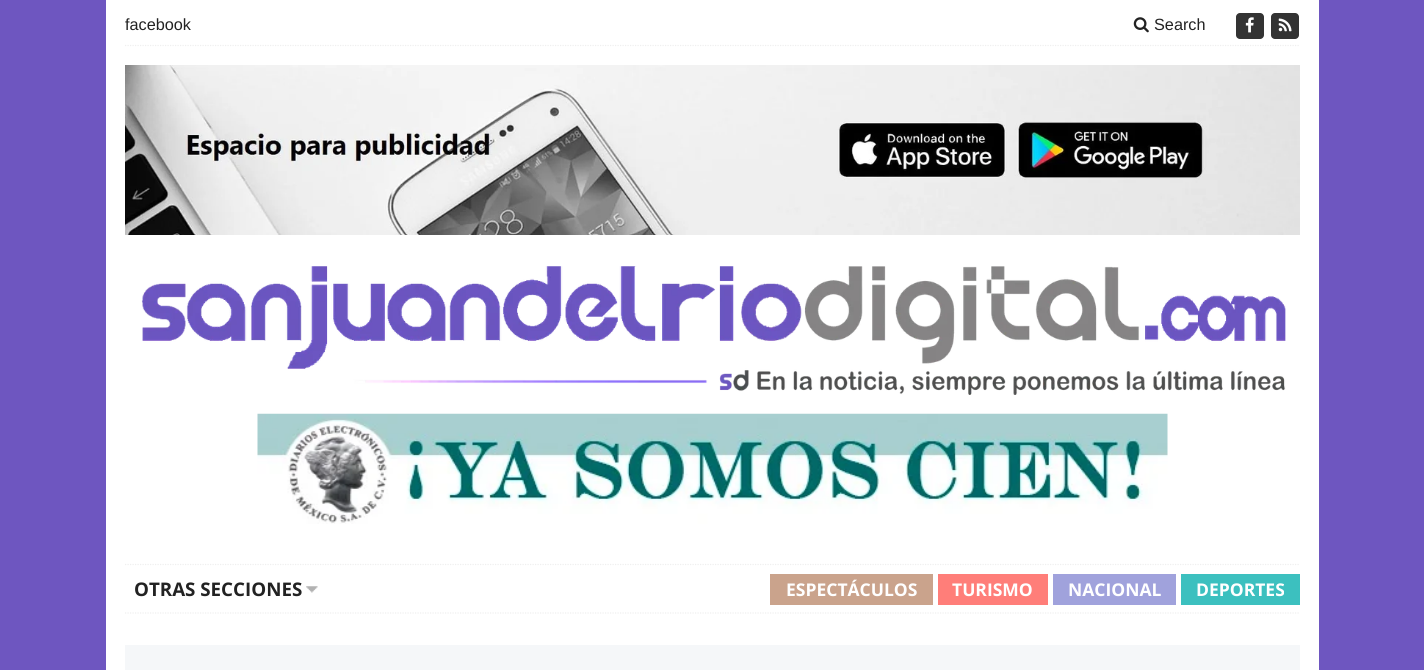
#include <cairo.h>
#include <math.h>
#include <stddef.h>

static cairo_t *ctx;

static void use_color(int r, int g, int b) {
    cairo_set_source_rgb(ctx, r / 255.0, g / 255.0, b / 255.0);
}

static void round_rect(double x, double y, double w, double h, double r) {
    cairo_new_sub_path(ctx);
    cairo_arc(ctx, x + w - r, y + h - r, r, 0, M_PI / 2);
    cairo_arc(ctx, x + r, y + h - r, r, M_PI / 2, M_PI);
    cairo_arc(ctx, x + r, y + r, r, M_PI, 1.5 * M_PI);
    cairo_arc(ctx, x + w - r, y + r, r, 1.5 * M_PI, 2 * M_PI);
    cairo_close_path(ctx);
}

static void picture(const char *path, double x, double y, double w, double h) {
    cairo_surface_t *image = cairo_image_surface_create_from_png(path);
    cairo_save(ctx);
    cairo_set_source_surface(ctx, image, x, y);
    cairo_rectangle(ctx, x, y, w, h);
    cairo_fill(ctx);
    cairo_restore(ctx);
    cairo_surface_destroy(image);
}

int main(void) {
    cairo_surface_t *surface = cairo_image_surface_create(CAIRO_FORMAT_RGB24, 1424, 670);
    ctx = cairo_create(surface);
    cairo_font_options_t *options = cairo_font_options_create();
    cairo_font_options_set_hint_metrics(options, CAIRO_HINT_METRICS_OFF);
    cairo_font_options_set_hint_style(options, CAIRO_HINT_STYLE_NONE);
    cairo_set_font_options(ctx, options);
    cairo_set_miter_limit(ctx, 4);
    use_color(110, 86, 192);
    cairo_paint(ctx);
    use_color(255, 255, 255);
    cairo_rectangle(ctx, 106, 0, 1213, 670);
    cairo_fill(ctx);
    cairo_new_path(ctx);
    cairo_move_to(ctx, 125, 45.5);
    cairo_line_to(ctx, 1300, 45.5);
    use_color(239, 239, 239);
    cairo_set_line_width(ctx, 1.2);
    cairo_set_dash(ctx, (double[]){1.25, 1.25}, 2, 0);
    cairo_stroke(ctx);
    cairo_select_font_face(ctx, "Liberation Sans", CAIRO_FONT_SLANT_NORMAL, CAIRO_FONT_WEIGHT_NORMAL);
    cairo_set_font_size(ctx, 16.25);
    use_color(34, 34, 34);
    cairo_move_to(ctx, 125, 30);
    cairo_show_text(ctx, "facebook");
    picture("img1.png", 1133, 17, 16, 16);
    cairo_move_to(ctx, 1154, 30);
    cairo_show_text(ctx, "Search");
    use_color(51, 51, 51);
    round_rect(1236, 13, 28, 26, 4);
    cairo_fill(ctx);
    picture("img2.png", 1245, 17, 9, 16);
    round_rect(1271, 13, 28, 26, 4);
    cairo_fill(ctx);
    picture("img3.png", 1278, 18, 14, 14);
    picture("img4.png", 125, 65, 1175, 170);
    picture("img5.png", 141, 266, 1145, 129);
    picture("img6.png", 257, 413, 911, 111);
    cairo_new_path(ctx);
    cairo_move_to(ctx, 125, 564.5);
    cairo_line_to(ctx, 1300, 564.5);
    use_color(239, 239, 239);
    cairo_stroke(ctx);
    cairo_new_path(ctx);
    cairo_move_to(ctx, 125, 613);
    cairo_line_to(ctx, 1300, 613);
    cairo_stroke(ctx);
    picture("img7.png", 306, 586, 12, 7);
    cairo_select_font_face(ctx, "Open Sans", CAIRO_FONT_SLANT_NORMAL, CAIRO_FONT_WEIGHT_BOLD);
    cairo_set_font_size(ctx, 18.75);
    use_color(34, 34, 34);
    cairo_move_to(ctx, 134, 596);
    cairo_show_text(ctx, "OTRAS SECCIONES");
    use_color(202, 163, 140);
    cairo_rectangle(ctx, 770, 574, 163, 31);
    cairo_fill(ctx);
    cairo_set_font_size(ctx, 17.5);
    use_color(255, 255, 255);
    cairo_move_to(ctx, 786, 596);
    cairo_show_text(ctx, "ESPECTÁCULOS");
    use_color(255, 126, 121);
    cairo_rectangle(ctx, 938, 574, 110, 31);
    cairo_fill(ctx);
    use_color(255, 255, 255);
    cairo_move_to(ctx, 952, 596);
    cairo_show_text(ctx, "TURISMO");
    use_color(160, 162, 220);
    cairo_rectangle(ctx, 1053, 574, 123, 31);
    cairo_fill(ctx);
    use_color(255, 255, 255);
    cairo_move_to(ctx, 1068, 596);
    cairo_show_text(ctx, "NACIONAL");
    use_color(60, 192, 191);
    cairo_rectangle(ctx, 1181, 574, 119, 31);
    cairo_fill(ctx);
    use_color(255, 255, 255);
    cairo_move_to(ctx, 1196, 596);
    cairo_show_text(ctx, "DEPORTES");
    use_color(245, 247, 249);
    cairo_rectangle(ctx, 125, 645, 1175, 25);
    cairo_fill(ctx);
    cairo_surface_write_to_png(surface, "result.png");
    cairo_font_options_destroy(options);
    cairo_destroy(ctx);
    cairo_surface_destroy(surface);
    return 0;
}
